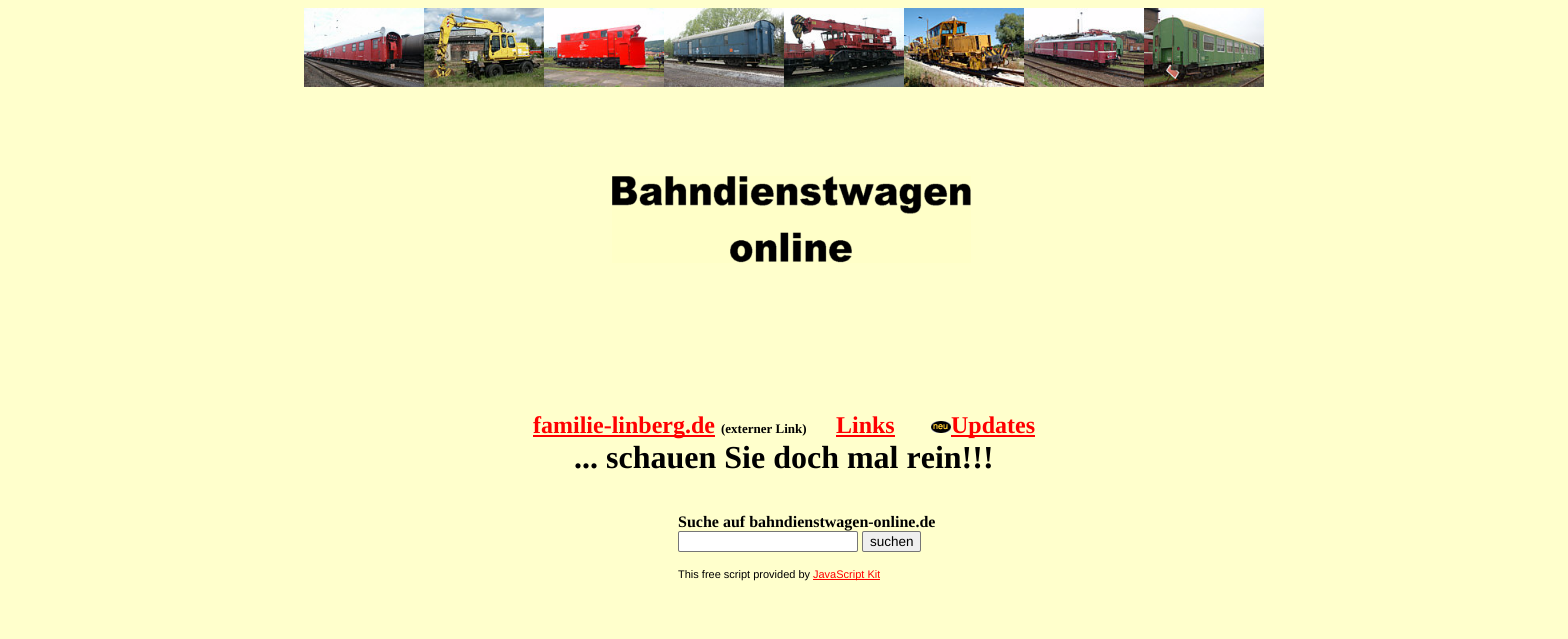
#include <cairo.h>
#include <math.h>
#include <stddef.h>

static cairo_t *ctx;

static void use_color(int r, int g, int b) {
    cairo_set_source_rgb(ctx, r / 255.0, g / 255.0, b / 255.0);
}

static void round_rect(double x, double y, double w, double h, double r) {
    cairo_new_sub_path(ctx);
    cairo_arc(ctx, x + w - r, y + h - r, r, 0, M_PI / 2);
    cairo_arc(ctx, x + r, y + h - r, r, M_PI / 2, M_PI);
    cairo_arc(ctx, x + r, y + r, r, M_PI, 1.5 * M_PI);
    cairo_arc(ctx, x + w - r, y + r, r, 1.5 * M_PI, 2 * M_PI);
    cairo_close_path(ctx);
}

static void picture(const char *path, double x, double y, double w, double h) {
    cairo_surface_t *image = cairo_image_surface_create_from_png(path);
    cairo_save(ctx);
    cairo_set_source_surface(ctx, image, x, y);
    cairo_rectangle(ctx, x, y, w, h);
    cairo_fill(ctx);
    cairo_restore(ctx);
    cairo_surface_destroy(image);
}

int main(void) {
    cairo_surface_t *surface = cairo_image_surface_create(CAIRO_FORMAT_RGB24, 1568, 639);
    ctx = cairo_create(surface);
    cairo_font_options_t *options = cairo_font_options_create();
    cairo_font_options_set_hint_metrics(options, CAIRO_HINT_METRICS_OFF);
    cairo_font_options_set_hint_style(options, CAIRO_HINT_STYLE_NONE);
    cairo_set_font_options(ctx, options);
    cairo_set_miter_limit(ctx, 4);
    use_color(255, 255, 204);
    cairo_paint(ctx);
    picture("img1.png", 304, 8, 120, 79);
    picture("img2.png", 424, 8, 120, 79);
    picture("img3.png", 544, 8, 120, 79);
    picture("img4.png", 664, 8, 120, 79);
    picture("img5.png", 784, 8, 120, 79);
    picture("img6.png", 904, 8, 120, 79);
    picture("img7.png", 1024, 8, 120, 79);
    picture("img8.png", 1144, 8, 120, 79);
    picture("img9.png", 612, 176, 359, 87);
    use_color(255, 0, 0);
    cairo_rectangle(ctx, 533, 435, 182, 2);
    cairo_fill(ctx);
    cairo_select_font_face(ctx, "Liberation Serif", CAIRO_FONT_SLANT_NORMAL, CAIRO_FONT_WEIGHT_BOLD);
    cairo_set_font_size(ctx, 24);
    cairo_move_to(ctx, 533, 433);
    cairo_show_text(ctx, "familie-linberg.de");
    cairo_set_font_size(ctx, 13);
    use_color(0, 0, 0);
    cairo_move_to(ctx, 721, 433);
    cairo_show_text(ctx, "(externer Link)");
    cairo_set_font_size(ctx, 24);
    use_color(255, 0, 0);
    cairo_move_to(ctx, 836, 433);
    cairo_show_text(ctx, "Links");
    cairo_rectangle(ctx, 836, 435, 59, 2);
    cairo_fill(ctx);
    picture("img10.png", 931, 421, 20, 12);
    cairo_rectangle(ctx, 951, 435, 84, 2);
    cairo_fill(ctx);
    cairo_move_to(ctx, 951, 433);
    cairo_show_text(ctx, "Updates");
    cairo_set_font_size(ctx, 32);
    use_color(0, 0, 0);
    cairo_move_to(ctx, 574, 468);
    cairo_show_text(ctx, "... schauen Sie doch mal rein!!!");
    cairo_set_font_size(ctx, 16);
    cairo_move_to(ctx, 678, 527);
    cairo_show_text(ctx, "Suche auf bahndienstwagen-online.de");
    use_color(255, 255, 255);
    round_rect(678.5, 531.5, 179, 20, 1.5);
    cairo_fill_preserve(ctx);
    use_color(118, 118, 118);
    cairo_set_line_width(ctx, 1);
    cairo_stroke(ctx);
    use_color(239, 239, 239);
    round_rect(862.5, 531.5, 58, 20, 1.5);
    cairo_fill_preserve(ctx);
    use_color(118, 118, 118);
    cairo_stroke(ctx);
    cairo_select_font_face(ctx, "Liberation Sans", CAIRO_FONT_SLANT_NORMAL, CAIRO_FONT_WEIGHT_NORMAL);
    cairo_set_font_size(ctx, 13.5);
    use_color(0, 0, 0);
    cairo_move_to(ctx, 870, 546);
    cairo_show_text(ctx, "suchen");
    cairo_set_font_size(ctx, 11);
    cairo_move_to(ctx, 678, 578);
    cairo_show_text(ctx, "This free script provided by");
    use_color(255, 0, 0);
    cairo_rectangle(ctx, 813, 579, 67, 1);
    cairo_fill(ctx);
    cairo_move_to(ctx, 813, 578);
    cairo_show_text(ctx, "JavaScript Kit");
    cairo_surface_write_to_png(surface, "result.png");
    cairo_font_options_destroy(options);
    cairo_destroy(ctx);
    cairo_surface_destroy(surface);
    return 0;
}
